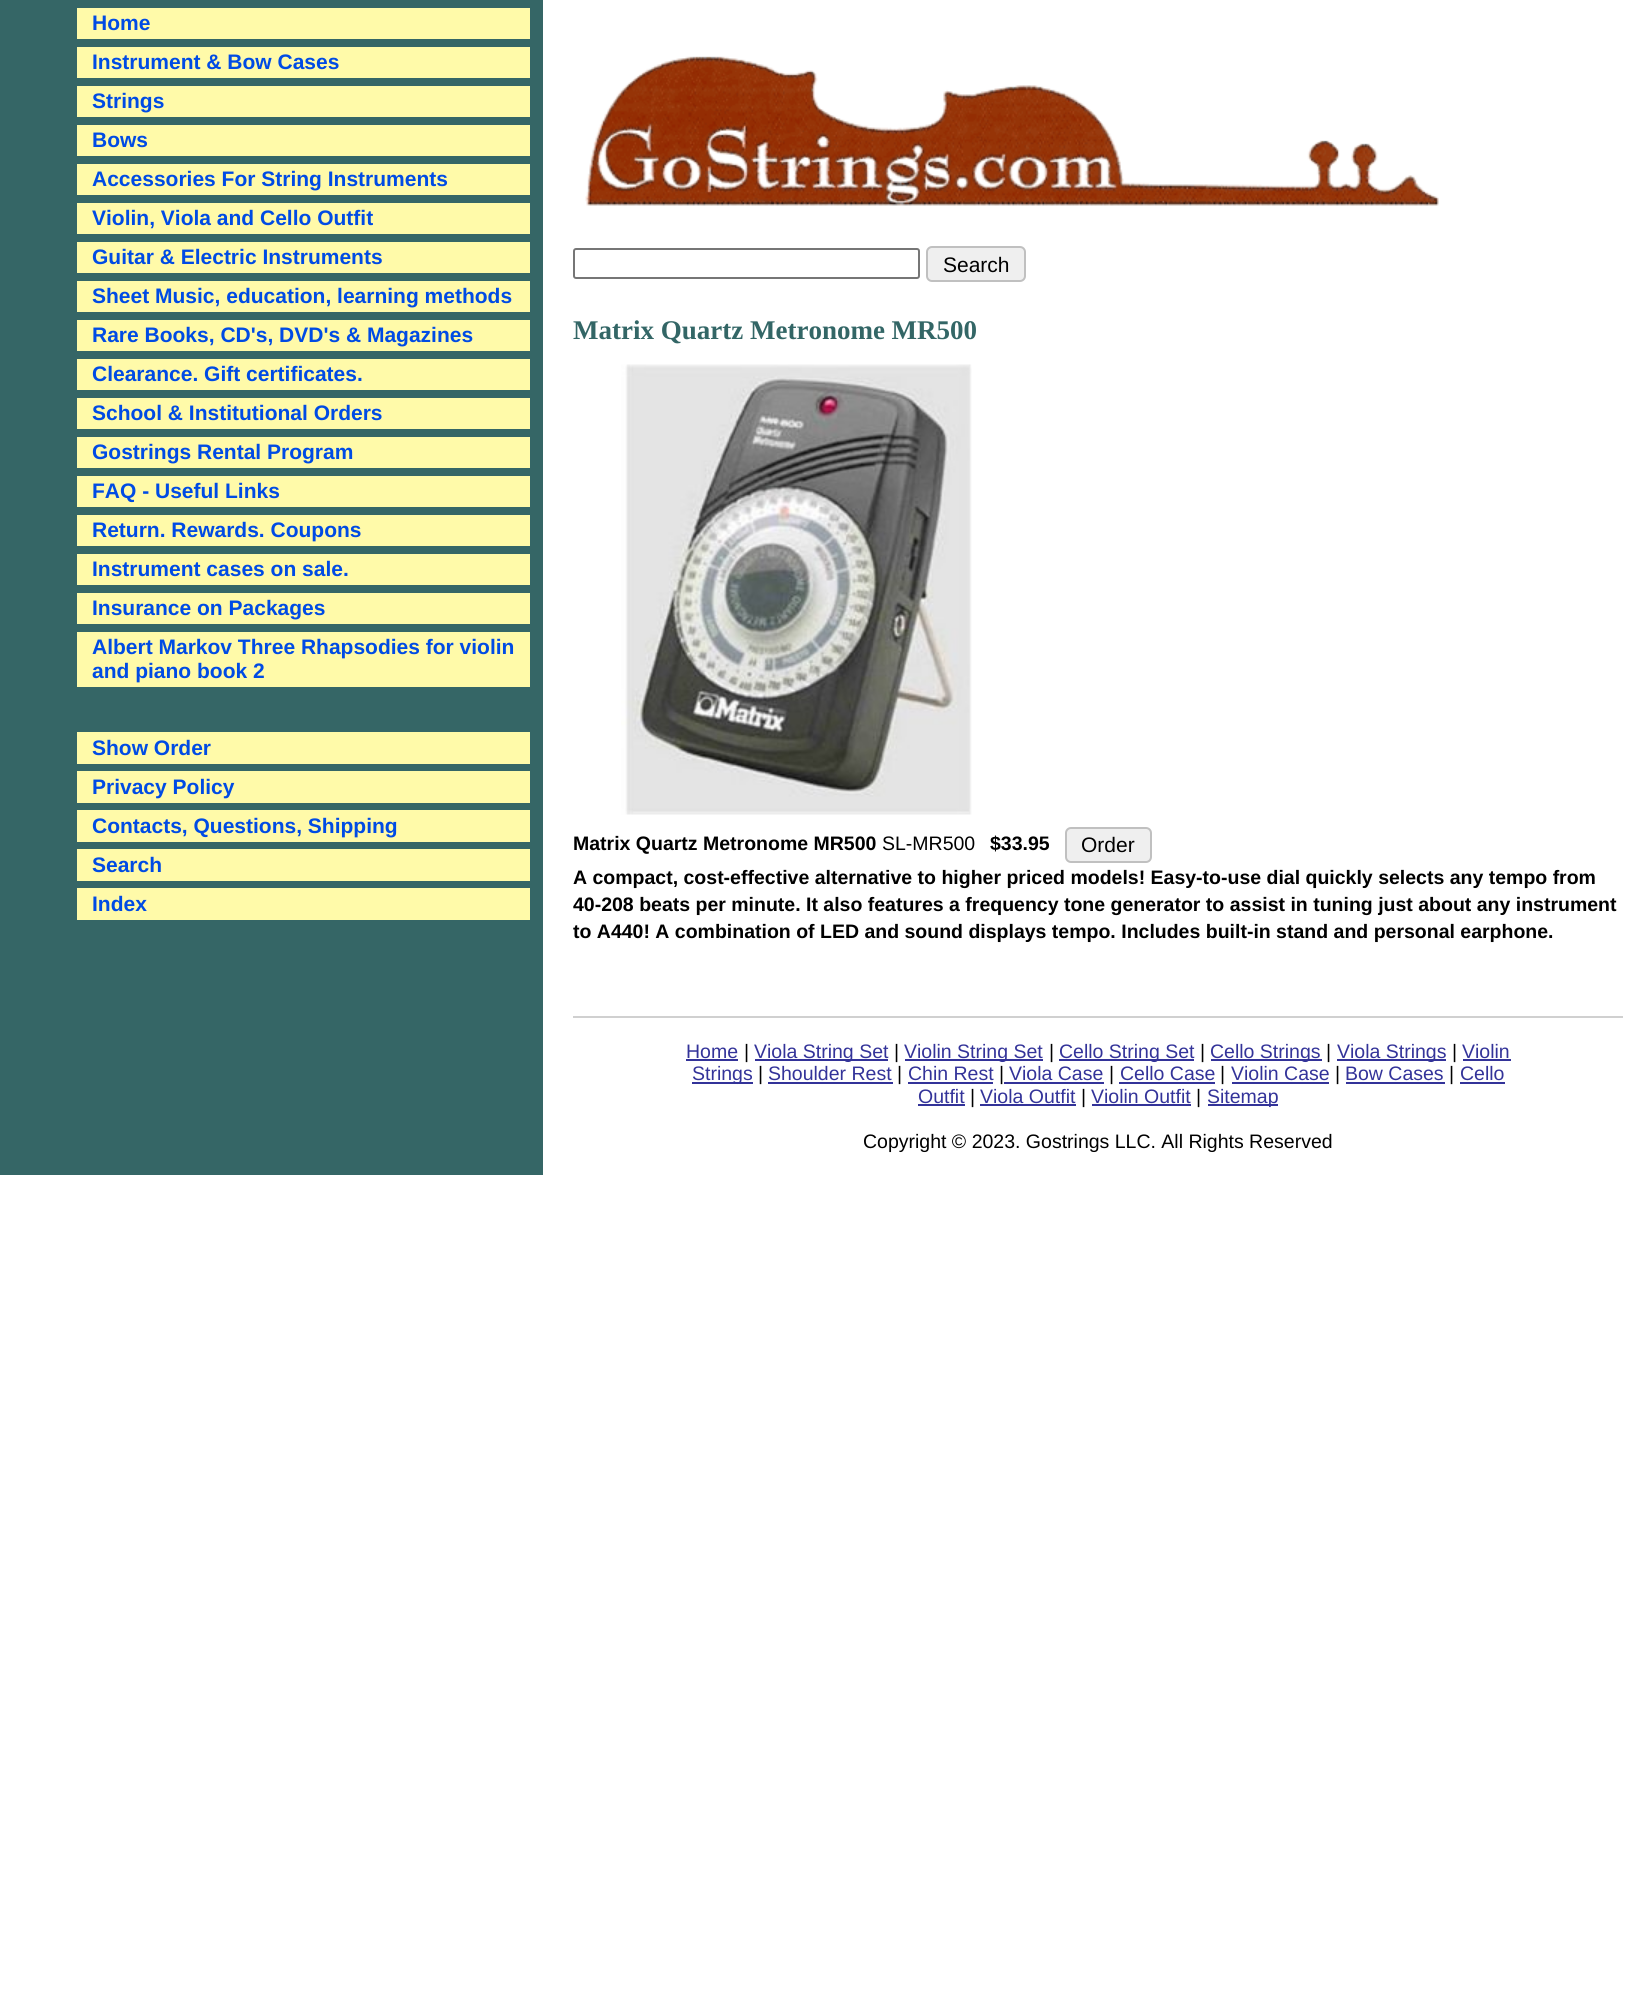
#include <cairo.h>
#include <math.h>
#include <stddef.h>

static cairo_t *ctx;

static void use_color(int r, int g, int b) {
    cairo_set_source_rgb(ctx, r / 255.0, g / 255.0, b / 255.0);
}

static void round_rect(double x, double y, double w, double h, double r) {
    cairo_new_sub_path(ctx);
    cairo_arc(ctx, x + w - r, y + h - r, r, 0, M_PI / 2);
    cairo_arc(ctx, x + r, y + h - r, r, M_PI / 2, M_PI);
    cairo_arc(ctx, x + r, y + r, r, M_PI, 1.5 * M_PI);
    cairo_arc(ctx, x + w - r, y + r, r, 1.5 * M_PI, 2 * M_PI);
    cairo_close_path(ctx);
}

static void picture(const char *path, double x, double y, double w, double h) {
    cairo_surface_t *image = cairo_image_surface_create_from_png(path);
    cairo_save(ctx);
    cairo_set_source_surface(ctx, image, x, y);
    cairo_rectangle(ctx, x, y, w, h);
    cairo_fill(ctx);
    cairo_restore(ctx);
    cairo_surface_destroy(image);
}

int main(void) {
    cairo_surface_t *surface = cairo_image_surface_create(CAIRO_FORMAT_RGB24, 1645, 1995);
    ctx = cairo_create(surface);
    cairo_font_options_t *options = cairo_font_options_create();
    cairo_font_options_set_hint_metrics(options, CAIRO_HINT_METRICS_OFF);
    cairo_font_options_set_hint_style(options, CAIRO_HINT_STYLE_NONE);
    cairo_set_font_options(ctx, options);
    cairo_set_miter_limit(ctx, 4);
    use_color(255, 255, 255);
    cairo_paint(ctx);
    use_color(53, 102, 102);
    cairo_rectangle(ctx, 0, 0, 543, 1175);
    cairo_fill(ctx);
    use_color(255, 250, 169);
    cairo_rectangle(ctx, 77, 8, 453, 31);
    cairo_fill(ctx);
    cairo_select_font_face(ctx, "Liberation Sans", CAIRO_FONT_SLANT_NORMAL, CAIRO_FONT_WEIGHT_BOLD);
    cairo_set_font_size(ctx, 21);
    use_color(0, 75, 228);
    cairo_move_to(ctx, 92, 30);
    cairo_show_text(ctx, "Home");
    use_color(255, 250, 169);
    cairo_rectangle(ctx, 77, 47, 453, 31);
    cairo_fill(ctx);
    use_color(0, 75, 228);
    cairo_move_to(ctx, 92, 69);
    cairo_show_text(ctx, "Instrument & Bow Cases");
    use_color(255, 250, 169);
    cairo_rectangle(ctx, 77, 86, 453, 31);
    cairo_fill(ctx);
    use_color(0, 75, 228);
    cairo_move_to(ctx, 92, 108);
    cairo_show_text(ctx, "Strings");
    use_color(255, 250, 169);
    cairo_rectangle(ctx, 77, 125, 453, 31);
    cairo_fill(ctx);
    use_color(0, 75, 228);
    cairo_move_to(ctx, 92, 147);
    cairo_show_text(ctx, "Bows");
    use_color(255, 250, 169);
    cairo_rectangle(ctx, 77, 164, 453, 31);
    cairo_fill(ctx);
    use_color(0, 75, 228);
    cairo_move_to(ctx, 92, 186);
    cairo_show_text(ctx, "Accessories For String Instruments");
    use_color(255, 250, 169);
    cairo_rectangle(ctx, 77, 203, 453, 31);
    cairo_fill(ctx);
    use_color(0, 75, 228);
    cairo_move_to(ctx, 92, 225);
    cairo_show_text(ctx, "Violin, Viola and Cello Outfit");
    use_color(255, 250, 169);
    cairo_rectangle(ctx, 77, 242, 453, 31);
    cairo_fill(ctx);
    use_color(0, 75, 228);
    cairo_move_to(ctx, 92, 264);
    cairo_show_text(ctx, "Guitar & Electric Instruments");
    use_color(255, 250, 169);
    cairo_rectangle(ctx, 77, 281, 453, 31);
    cairo_fill(ctx);
    use_color(0, 75, 228);
    cairo_move_to(ctx, 92, 303);
    cairo_show_text(ctx, "Sheet Music, education, learning methods");
    use_color(255, 250, 169);
    cairo_rectangle(ctx, 77, 320, 453, 31);
    cairo_fill(ctx);
    use_color(0, 75, 228);
    cairo_move_to(ctx, 92, 342);
    cairo_show_text(ctx, "Rare Books, CD's, DVD's & Magazines");
    use_color(255, 250, 169);
    cairo_rectangle(ctx, 77, 359, 453, 31);
    cairo_fill(ctx);
    use_color(0, 75, 228);
    cairo_move_to(ctx, 92, 381);
    cairo_show_text(ctx, "Clearance. Gift certificates.");
    use_color(255, 250, 169);
    cairo_rectangle(ctx, 77, 398, 453, 31);
    cairo_fill(ctx);
    use_color(0, 75, 228);
    cairo_move_to(ctx, 92, 420);
    cairo_show_text(ctx, "School & Institutional Orders");
    use_color(255, 250, 169);
    cairo_rectangle(ctx, 77, 437, 453, 31);
    cairo_fill(ctx);
    use_color(0, 75, 228);
    cairo_move_to(ctx, 92, 459);
    cairo_show_text(ctx, "Gostrings Rental Program");
    use_color(255, 250, 169);
    cairo_rectangle(ctx, 77, 476, 453, 31);
    cairo_fill(ctx);
    use_color(0, 75, 228);
    cairo_move_to(ctx, 92, 498);
    cairo_show_text(ctx, "FAQ - Useful Links");
    use_color(255, 250, 169);
    cairo_rectangle(ctx, 77, 515, 453, 31);
    cairo_fill(ctx);
    use_color(0, 75, 228);
    cairo_move_to(ctx, 92, 537);
    cairo_show_text(ctx, "Return. Rewards. Coupons");
    use_color(255, 250, 169);
    cairo_rectangle(ctx, 77, 554, 453, 31);
    cairo_fill(ctx);
    use_color(0, 75, 228);
    cairo_move_to(ctx, 92, 576);
    cairo_show_text(ctx, "Instrument cases on sale.");
    use_color(255, 250, 169);
    cairo_rectangle(ctx, 77, 593, 453, 31);
    cairo_fill(ctx);
    use_color(0, 75, 228);
    cairo_move_to(ctx, 92, 615);
    cairo_show_text(ctx, "Insurance on Packages");
    use_color(255, 250, 169);
    cairo_rectangle(ctx, 77, 632, 453, 55);
    cairo_fill(ctx);
    use_color(0, 75, 228);
    cairo_move_to(ctx, 92, 654);
    cairo_show_text(ctx, "Albert Markov Three Rhapsodies for violin");
    cairo_move_to(ctx, 92, 678);
    cairo_show_text(ctx, "and piano book 2");
    use_color(255, 250, 169);
    cairo_rectangle(ctx, 77, 732, 453, 32);
    cairo_fill(ctx);
    use_color(0, 75, 228);
    cairo_move_to(ctx, 92, 755);
    cairo_show_text(ctx, "Show Order");
    use_color(255, 250, 169);
    cairo_rectangle(ctx, 77, 771, 453, 32);
    cairo_fill(ctx);
    use_color(0, 75, 228);
    cairo_move_to(ctx, 92, 794);
    cairo_show_text(ctx, "Privacy Policy");
    use_color(255, 250, 169);
    cairo_rectangle(ctx, 77, 810, 453, 32);
    cairo_fill(ctx);
    use_color(0, 75, 228);
    cairo_move_to(ctx, 92, 833);
    cairo_show_text(ctx, "Contacts, Questions, Shipping");
    use_color(255, 250, 169);
    cairo_rectangle(ctx, 77, 849, 453, 32);
    cairo_fill(ctx);
    use_color(0, 75, 228);
    cairo_move_to(ctx, 92, 872);
    cairo_show_text(ctx, "Search");
    use_color(255, 250, 169);
    cairo_rectangle(ctx, 77, 888, 453, 32);
    cairo_fill(ctx);
    use_color(0, 75, 228);
    cairo_move_to(ctx, 92, 911);
    cairo_show_text(ctx, "Index");
    picture("img1.png", 585, 56, 854, 150);
    round_rect(574, 249, 345, 29, 2);
    use_color(118, 118, 118);
    cairo_stroke(ctx);
    use_color(239, 239, 239);
    round_rect(927, 247, 98, 34, 5);
    cairo_fill_preserve(ctx);
    use_color(192, 192, 192);
    cairo_stroke(ctx);
    cairo_select_font_face(ctx, "Liberation Sans", CAIRO_FONT_SLANT_NORMAL, CAIRO_FONT_WEIGHT_NORMAL);
    use_color(0, 0, 0);
    cairo_move_to(ctx, 943, 272);
    cairo_show_text(ctx, "Search");
    cairo_select_font_face(ctx, "Liberation Serif", CAIRO_FONT_SLANT_NORMAL, CAIRO_FONT_WEIGHT_BOLD);
    cairo_set_font_size(ctx, 27);
    use_color(51, 102, 102);
    cairo_move_to(ctx, 573, 339);
    cairo_show_text(ctx, "Matrix Quartz Metronome MR500");
    picture("img2.png", 621, 364, 351, 451);
    cairo_select_font_face(ctx, "Liberation Sans", CAIRO_FONT_SLANT_NORMAL, CAIRO_FONT_WEIGHT_BOLD);
    cairo_set_font_size(ctx, 19.5);
    use_color(0, 0, 0);
    cairo_move_to(ctx, 573, 850);
    cairo_show_text(ctx, "Matrix Quartz Metronome MR500");
    cairo_select_font_face(ctx, "Liberation Sans", CAIRO_FONT_SLANT_NORMAL, CAIRO_FONT_WEIGHT_NORMAL);
    cairo_move_to(ctx, 882, 850);
    cairo_show_text(ctx, "SL-MR500");
    cairo_select_font_face(ctx, "Liberation Sans", CAIRO_FONT_SLANT_NORMAL, CAIRO_FONT_WEIGHT_BOLD);
    cairo_move_to(ctx, 990, 850);
    cairo_show_text(ctx, "$33.95");
    use_color(239, 239, 239);
    round_rect(1066, 828, 85, 34, 5);
    cairo_fill_preserve(ctx);
    use_color(192, 192, 192);
    cairo_stroke(ctx);
    cairo_select_font_face(ctx, "Liberation Sans", CAIRO_FONT_SLANT_NORMAL, CAIRO_FONT_WEIGHT_NORMAL);
    cairo_set_font_size(ctx, 21);
    use_color(0, 0, 0);
    cairo_move_to(ctx, 1081, 852);
    cairo_show_text(ctx, "Order");
    cairo_select_font_face(ctx, "Liberation Sans", CAIRO_FONT_SLANT_NORMAL, CAIRO_FONT_WEIGHT_BOLD);
    cairo_set_font_size(ctx, 19.5);
    cairo_move_to(ctx, 573, 884);
    cairo_show_text(ctx, "A compact, cost-effective alternative to higher priced models! Easy-to-use dial quickly selects any tempo from");
    cairo_move_to(ctx, 573, 911);
    cairo_show_text(ctx, "40-208 beats per minute. It also features a frequency tone generator to assist in tuning just about any instrument");
    cairo_move_to(ctx, 573, 938);
    cairo_show_text(ctx, "to A440! A combination of LED and sound displays tempo. Includes built-in stand and personal earphone.");
    use_color(208, 208, 208);
    cairo_rectangle(ctx, 573, 1016, 1050, 2);
    cairo_fill(ctx);
    cairo_select_font_face(ctx, "Liberation Sans", CAIRO_FONT_SLANT_NORMAL, CAIRO_FONT_WEIGHT_NORMAL);
    use_color(51, 51, 153);
    cairo_move_to(ctx, 686, 1058);
    cairo_show_text(ctx, "Home");
    cairo_rectangle(ctx, 686, 1059, 52, 2);
    cairo_fill(ctx);
    use_color(0, 0, 0);
    cairo_move_to(ctx, 744, 1058);
    cairo_show_text(ctx, "|");
    use_color(51, 51, 153);
    cairo_rectangle(ctx, 755, 1059, 133, 2);
    cairo_fill(ctx);
    cairo_move_to(ctx, 754, 1058);
    cairo_show_text(ctx, "Viola String Set");
    use_color(0, 0, 0);
    cairo_move_to(ctx, 894, 1058);
    cairo_show_text(ctx, "|");
    use_color(51, 51, 153);
    cairo_rectangle(ctx, 905, 1059, 138, 2);
    cairo_fill(ctx);
    cairo_move_to(ctx, 904, 1058);
    cairo_show_text(ctx, "Violin String Set");
    use_color(0, 0, 0);
    cairo_move_to(ctx, 1049, 1058);
    cairo_show_text(ctx, "|");
    use_color(51, 51, 153);
    cairo_rectangle(ctx, 1059, 1059, 135, 2);
    cairo_fill(ctx);
    cairo_move_to(ctx, 1059, 1058);
    cairo_show_text(ctx, "Cello String Set");
    use_color(0, 0, 0);
    cairo_move_to(ctx, 1200, 1058);
    cairo_show_text(ctx, "|");
    use_color(51, 51, 153);
    cairo_rectangle(ctx, 1211, 1059, 111, 2);
    cairo_fill(ctx);
    cairo_move_to(ctx, 1210, 1058);
    cairo_show_text(ctx, "Cello Strings");
    use_color(0, 0, 0);
    cairo_move_to(ctx, 1326, 1058);
    cairo_show_text(ctx, "|");
    use_color(51, 51, 153);
    cairo_rectangle(ctx, 1337, 1059, 109, 2);
    cairo_fill(ctx);
    cairo_move_to(ctx, 1337, 1058);
    cairo_show_text(ctx, "Viola Strings");
    use_color(0, 0, 0);
    cairo_move_to(ctx, 1452, 1058);
    cairo_show_text(ctx, "|");
    use_color(51, 51, 153);
    cairo_move_to(ctx, 1462, 1058);
    cairo_show_text(ctx, "Violin");
    cairo_rectangle(ctx, 1463, 1059, 48, 2);
    cairo_fill(ctx);
    cairo_rectangle(ctx, 692, 1082, 61, 2);
    cairo_fill(ctx);
    cairo_move_to(ctx, 692, 1080);
    cairo_show_text(ctx, "Strings");
    use_color(0, 0, 0);
    cairo_move_to(ctx, 758, 1080);
    cairo_show_text(ctx, "|");
    use_color(51, 51, 153);
    cairo_move_to(ctx, 768, 1080);
    cairo_show_text(ctx, "Shoulder Rest");
    cairo_rectangle(ctx, 768, 1082, 125, 2);
    cairo_fill(ctx);
    use_color(0, 0, 0);
    cairo_move_to(ctx, 897, 1080);
    cairo_show_text(ctx, "|");
    use_color(51, 51, 153);
    cairo_move_to(ctx, 908, 1080);
    cairo_show_text(ctx, "Chin Rest");
    cairo_rectangle(ctx, 908, 1082, 85, 2);
    cairo_fill(ctx);
    use_color(0, 0, 0);
    cairo_move_to(ctx, 999, 1080);
    cairo_show_text(ctx, "|");
    use_color(51, 51, 153);
    cairo_move_to(ctx, 1009, 1080);
    cairo_show_text(ctx, "Viola Case");
    cairo_rectangle(ctx, 1004, 1082, 100, 2);
    cairo_fill(ctx);
    use_color(0, 0, 0);
    cairo_move_to(ctx, 1109, 1080);
    cairo_show_text(ctx, "|");
    use_color(51, 51, 153);
    cairo_move_to(ctx, 1120, 1080);
    cairo_show_text(ctx, "Cello Case");
    cairo_rectangle(ctx, 1119, 1082, 96, 2);
    cairo_fill(ctx);
    use_color(0, 0, 0);
    cairo_move_to(ctx, 1220, 1080);
    cairo_show_text(ctx, "|");
    use_color(51, 51, 153);
    cairo_move_to(ctx, 1231, 1080);
    cairo_show_text(ctx, "Violin Case");
    cairo_rectangle(ctx, 1232, 1082, 97, 2);
    cairo_fill(ctx);
    use_color(0, 0, 0);
    cairo_move_to(ctx, 1335, 1080);
    cairo_show_text(ctx, "|");
    use_color(51, 51, 153);
    cairo_move_to(ctx, 1345, 1080);
    cairo_show_text(ctx, "Bow Cases");
    cairo_rectangle(ctx, 1346, 1082, 99, 2);
    cairo_fill(ctx);
    use_color(0, 0, 0);
    cairo_move_to(ctx, 1449, 1080);
    cairo_show_text(ctx, "|");
    use_color(51, 51, 153);
    cairo_move_to(ctx, 1460, 1080);
    cairo_show_text(ctx, "Cello");
    cairo_rectangle(ctx, 1460, 1082, 45, 2);
    cairo_fill(ctx);
    cairo_move_to(ctx, 918, 1103);
    cairo_show_text(ctx, "Outfit");
    cairo_rectangle(ctx, 918, 1104, 47, 2);
    cairo_fill(ctx);
    use_color(0, 0, 0);
    cairo_move_to(ctx, 970, 1103);
    cairo_show_text(ctx, "|");
    use_color(51, 51, 153);
    cairo_move_to(ctx, 980, 1103);
    cairo_show_text(ctx, "Viola Outfit");
    cairo_rectangle(ctx, 980, 1104, 96, 2);
    cairo_fill(ctx);
    use_color(0, 0, 0);
    cairo_move_to(ctx, 1081, 1103);
    cairo_show_text(ctx, "|");
    use_color(51, 51, 153);
    cairo_move_to(ctx, 1091, 1103);
    cairo_show_text(ctx, "Violin Outfit");
    cairo_rectangle(ctx, 1092, 1104, 99, 2);
    cairo_fill(ctx);
    use_color(0, 0, 0);
    cairo_move_to(ctx, 1196, 1103);
    cairo_show_text(ctx, "|");
    use_color(51, 51, 153);
    cairo_rectangle(ctx, 1208, 1104, 70, 2);
    cairo_fill(ctx);
    cairo_move_to(ctx, 1207, 1103);
    cairo_show_text(ctx, "Sitemap");
    use_color(0, 0, 0);
    cairo_move_to(ctx, 863, 1148);
    cairo_show_text(ctx, "Copyright © 2023. Gostrings LLC. All Rights Reserved");
    cairo_surface_write_to_png(surface, "result.png");
    cairo_font_options_destroy(options);
    cairo_destroy(ctx);
    cairo_surface_destroy(surface);
    return 0;
}
